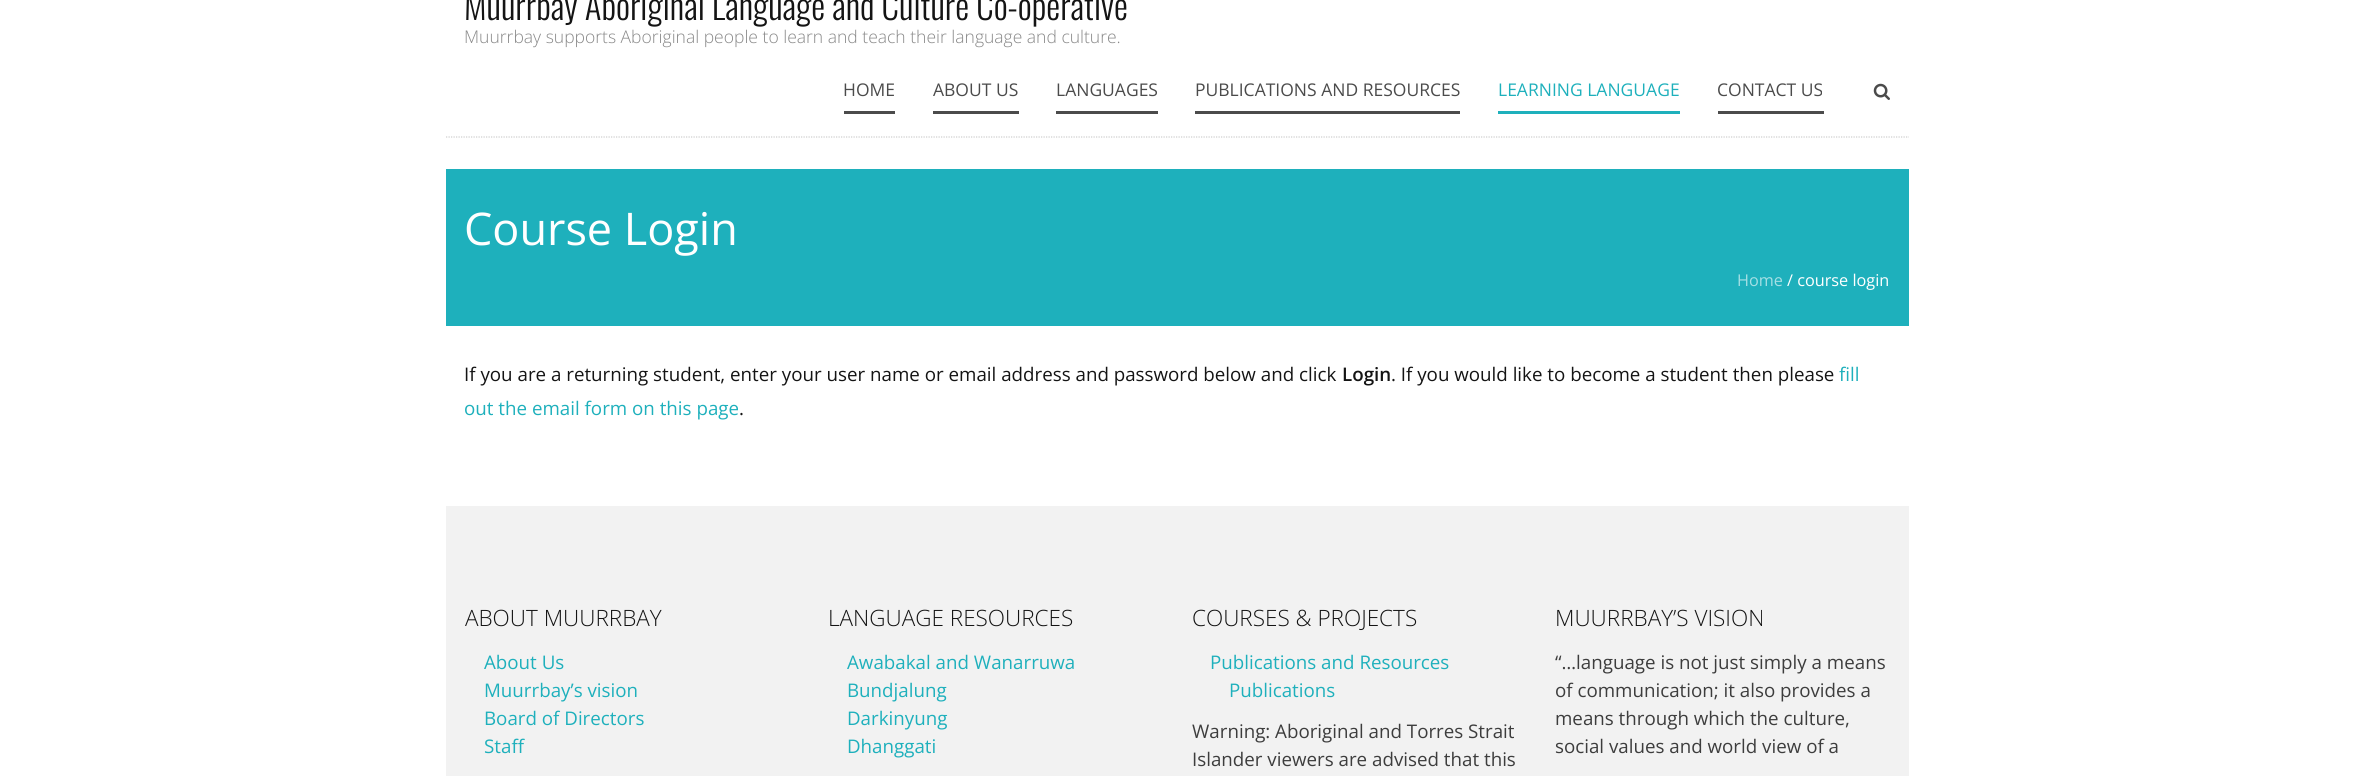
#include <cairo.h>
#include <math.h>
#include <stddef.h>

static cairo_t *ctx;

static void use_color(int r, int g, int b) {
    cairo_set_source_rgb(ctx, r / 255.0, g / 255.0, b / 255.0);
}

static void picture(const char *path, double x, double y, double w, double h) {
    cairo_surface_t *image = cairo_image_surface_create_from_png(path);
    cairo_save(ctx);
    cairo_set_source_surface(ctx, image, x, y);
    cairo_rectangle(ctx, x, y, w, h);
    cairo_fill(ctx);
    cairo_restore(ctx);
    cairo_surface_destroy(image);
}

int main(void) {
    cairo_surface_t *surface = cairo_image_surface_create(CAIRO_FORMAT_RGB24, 2353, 776);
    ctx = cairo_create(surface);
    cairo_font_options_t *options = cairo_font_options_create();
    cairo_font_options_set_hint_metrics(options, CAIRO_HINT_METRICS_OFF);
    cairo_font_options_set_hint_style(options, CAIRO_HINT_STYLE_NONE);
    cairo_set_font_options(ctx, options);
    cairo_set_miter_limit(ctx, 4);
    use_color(255, 255, 255);
    cairo_paint(ctx);
    cairo_new_path(ctx);
    cairo_move_to(ctx, 446, 137);
    cairo_line_to(ctx, 1909, 137);
    use_color(205, 205, 205);
    cairo_set_line_width(ctx, 1.2);
    cairo_set_dash(ctx, (double[]){1.25, 1.25}, 2, 0);
    cairo_stroke(ctx);
    cairo_select_font_face(ctx, "Oswald Light", CAIRO_FONT_SLANT_NORMAL, CAIRO_FONT_WEIGHT_NORMAL);
    cairo_set_font_size(ctx, 35);
    use_color(20, 20, 20);
    cairo_move_to(ctx, 464, 20);
    cairo_show_text(ctx, "Muurrbay Aboriginal Language and Culture Co-operative");
    cairo_select_font_face(ctx, "Open Sans Light", CAIRO_FONT_SLANT_NORMAL, CAIRO_FONT_WEIGHT_NORMAL);
    cairo_set_font_size(ctx, 17.5);
    use_color(136, 136, 136);
    cairo_move_to(ctx, 464, 43);
    cairo_show_text(ctx, "Muurrbay supports Aboriginal people to learn and teach their language and culture.");
    use_color(75, 75, 75);
    cairo_rectangle(ctx, 844, 111, 51, 3);
    cairo_fill(ctx);
    cairo_select_font_face(ctx, "Open Sans", CAIRO_FONT_SLANT_NORMAL, CAIRO_FONT_WEIGHT_NORMAL);
    cairo_move_to(ctx, 843, 96);
    cairo_show_text(ctx, "HOME");
    cairo_rectangle(ctx, 933, 111, 86, 3);
    cairo_fill(ctx);
    cairo_move_to(ctx, 933, 96);
    cairo_show_text(ctx, "ABOUT US");
    cairo_rectangle(ctx, 1056, 111, 102, 3);
    cairo_fill(ctx);
    cairo_move_to(ctx, 1056, 96);
    cairo_show_text(ctx, "LANGUAGES");
    cairo_rectangle(ctx, 1195, 111, 265, 3);
    cairo_fill(ctx);
    cairo_move_to(ctx, 1195, 96);
    cairo_show_text(ctx, "PUBLICATIONS AND RESOURCES");
    use_color(30, 176, 188);
    cairo_rectangle(ctx, 1498, 111, 182, 3);
    cairo_fill(ctx);
    cairo_move_to(ctx, 1498, 96);
    cairo_show_text(ctx, "LEARNING LANGUAGE");
    use_color(75, 75, 75);
    cairo_rectangle(ctx, 1718, 111, 106, 3);
    cairo_fill(ctx);
    cairo_move_to(ctx, 1717, 96);
    cairo_show_text(ctx, "CONTACT US");
    picture("img1.png", 1873, 83, 17, 17);
    use_color(30, 176, 188);
    cairo_rectangle(ctx, 446, 169, 1463, 157);
    cairo_fill(ctx);
    cairo_set_font_size(ctx, 45);
    use_color(255, 255, 255);
    cairo_move_to(ctx, 464, 245);
    cairo_show_text(ctx, "Course Login");
    cairo_set_font_size(ctx, 16.25);
    use_color(165, 223, 228);
    cairo_move_to(ctx, 1737, 286);
    cairo_show_text(ctx, "Home");
    use_color(255, 255, 255);
    cairo_move_to(ctx, 1787, 286);
    cairo_show_text(ctx, "/ course login");
    cairo_set_font_size(ctx, 18.75);
    use_color(20, 20, 20);
    cairo_move_to(ctx, 464, 381);
    cairo_show_text(ctx, "If you are a returning student, enter your user name or email address and password below and click");
    cairo_select_font_face(ctx, "Open Sans SemiBold", CAIRO_FONT_SLANT_NORMAL, CAIRO_FONT_WEIGHT_NORMAL);
    cairo_move_to(ctx, 1342, 381);
    cairo_show_text(ctx, "Login");
    cairo_select_font_face(ctx, "Open Sans", CAIRO_FONT_SLANT_NORMAL, CAIRO_FONT_WEIGHT_NORMAL);
    cairo_move_to(ctx, 1391, 381);
    cairo_show_text(ctx, ". If you would like to become a student then please");
    use_color(30, 176, 188);
    cairo_move_to(ctx, 1839, 381);
    cairo_show_text(ctx, "fill");
    cairo_move_to(ctx, 464, 415);
    cairo_show_text(ctx, "out the email form on this page");
    use_color(20, 20, 20);
    cairo_move_to(ctx, 739, 415);
    cairo_show_text(ctx, ".");
    use_color(242, 242, 242);
    cairo_rectangle(ctx, 446, 506, 1463, 270);
    cairo_fill(ctx);
    cairo_select_font_face(ctx, "Open Sans Light", CAIRO_FONT_SLANT_NORMAL, CAIRO_FONT_WEIGHT_NORMAL);
    cairo_set_font_size(ctx, 22.5);
    use_color(20, 20, 20);
    cairo_move_to(ctx, 465, 626);
    cairo_show_text(ctx, "ABOUT MUURRBAY");
    cairo_select_font_face(ctx, "Open Sans", CAIRO_FONT_SLANT_NORMAL, CAIRO_FONT_WEIGHT_NORMAL);
    cairo_set_font_size(ctx, 18.75);
    use_color(30, 176, 188);
    cairo_move_to(ctx, 484, 669);
    cairo_show_text(ctx, "About Us");
    cairo_move_to(ctx, 484, 697);
    cairo_show_text(ctx, "Muurrbay’s vision");
    cairo_move_to(ctx, 484, 725);
    cairo_show_text(ctx, "Board of Directors");
    cairo_move_to(ctx, 484, 753);
    cairo_show_text(ctx, "Staff");
    cairo_select_font_face(ctx, "Open Sans Light", CAIRO_FONT_SLANT_NORMAL, CAIRO_FONT_WEIGHT_NORMAL);
    cairo_set_font_size(ctx, 22.5);
    use_color(20, 20, 20);
    cairo_move_to(ctx, 828, 626);
    cairo_show_text(ctx, "LANGUAGE RESOURCES");
    cairo_select_font_face(ctx, "Open Sans", CAIRO_FONT_SLANT_NORMAL, CAIRO_FONT_WEIGHT_NORMAL);
    cairo_set_font_size(ctx, 18.75);
    use_color(30, 176, 188);
    cairo_move_to(ctx, 847, 669);
    cairo_show_text(ctx, "Awabakal and Wanarruwa");
    cairo_move_to(ctx, 847, 697);
    cairo_show_text(ctx, "Bundjalung");
    cairo_move_to(ctx, 847, 725);
    cairo_show_text(ctx, "Darkinyung");
    cairo_move_to(ctx, 847, 753);
    cairo_show_text(ctx, "Dhanggati");
    cairo_select_font_face(ctx, "Open Sans Light", CAIRO_FONT_SLANT_NORMAL, CAIRO_FONT_WEIGHT_NORMAL);
    cairo_set_font_size(ctx, 22.5);
    use_color(20, 20, 20);
    cairo_move_to(ctx, 1192, 626);
    cairo_show_text(ctx, "COURSES & PROJECTS");
    cairo_select_font_face(ctx, "Open Sans", CAIRO_FONT_SLANT_NORMAL, CAIRO_FONT_WEIGHT_NORMAL);
    cairo_set_font_size(ctx, 18.75);
    use_color(30, 176, 188);
    cairo_move_to(ctx, 1210, 669);
    cairo_show_text(ctx, "Publications and Resources");
    cairo_move_to(ctx, 1229, 697);
    cairo_show_text(ctx, "Publications");
    use_color(61, 61, 61);
    cairo_move_to(ctx, 1192, 738);
    cairo_show_text(ctx, "Warning: Aboriginal and Torres Strait");
    cairo_move_to(ctx, 1192, 766);
    cairo_show_text(ctx, "Islander viewers are advised that this");
    cairo_select_font_face(ctx, "Open Sans Light", CAIRO_FONT_SLANT_NORMAL, CAIRO_FONT_WEIGHT_NORMAL);
    cairo_set_font_size(ctx, 22.5);
    use_color(20, 20, 20);
    cairo_move_to(ctx, 1555, 626);
    cairo_show_text(ctx, "MUURRBAY’S VISION");
    cairo_select_font_face(ctx, "Open Sans", CAIRO_FONT_SLANT_NORMAL, CAIRO_FONT_WEIGHT_NORMAL);
    cairo_set_font_size(ctx, 18.75);
    use_color(61, 61, 61);
    cairo_move_to(ctx, 1555, 669);
    cairo_show_text(ctx, "“…language is not just simply a means");
    cairo_move_to(ctx, 1555, 697);
    cairo_show_text(ctx, "of communication; it also provides a");
    cairo_move_to(ctx, 1555, 725);
    cairo_show_text(ctx, "means through which the culture,");
    cairo_move_to(ctx, 1555, 753);
    cairo_show_text(ctx, "social values and world view of a");
    cairo_surface_write_to_png(surface, "result.png");
    cairo_font_options_destroy(options);
    cairo_destroy(ctx);
    cairo_surface_destroy(surface);
    return 0;
}
